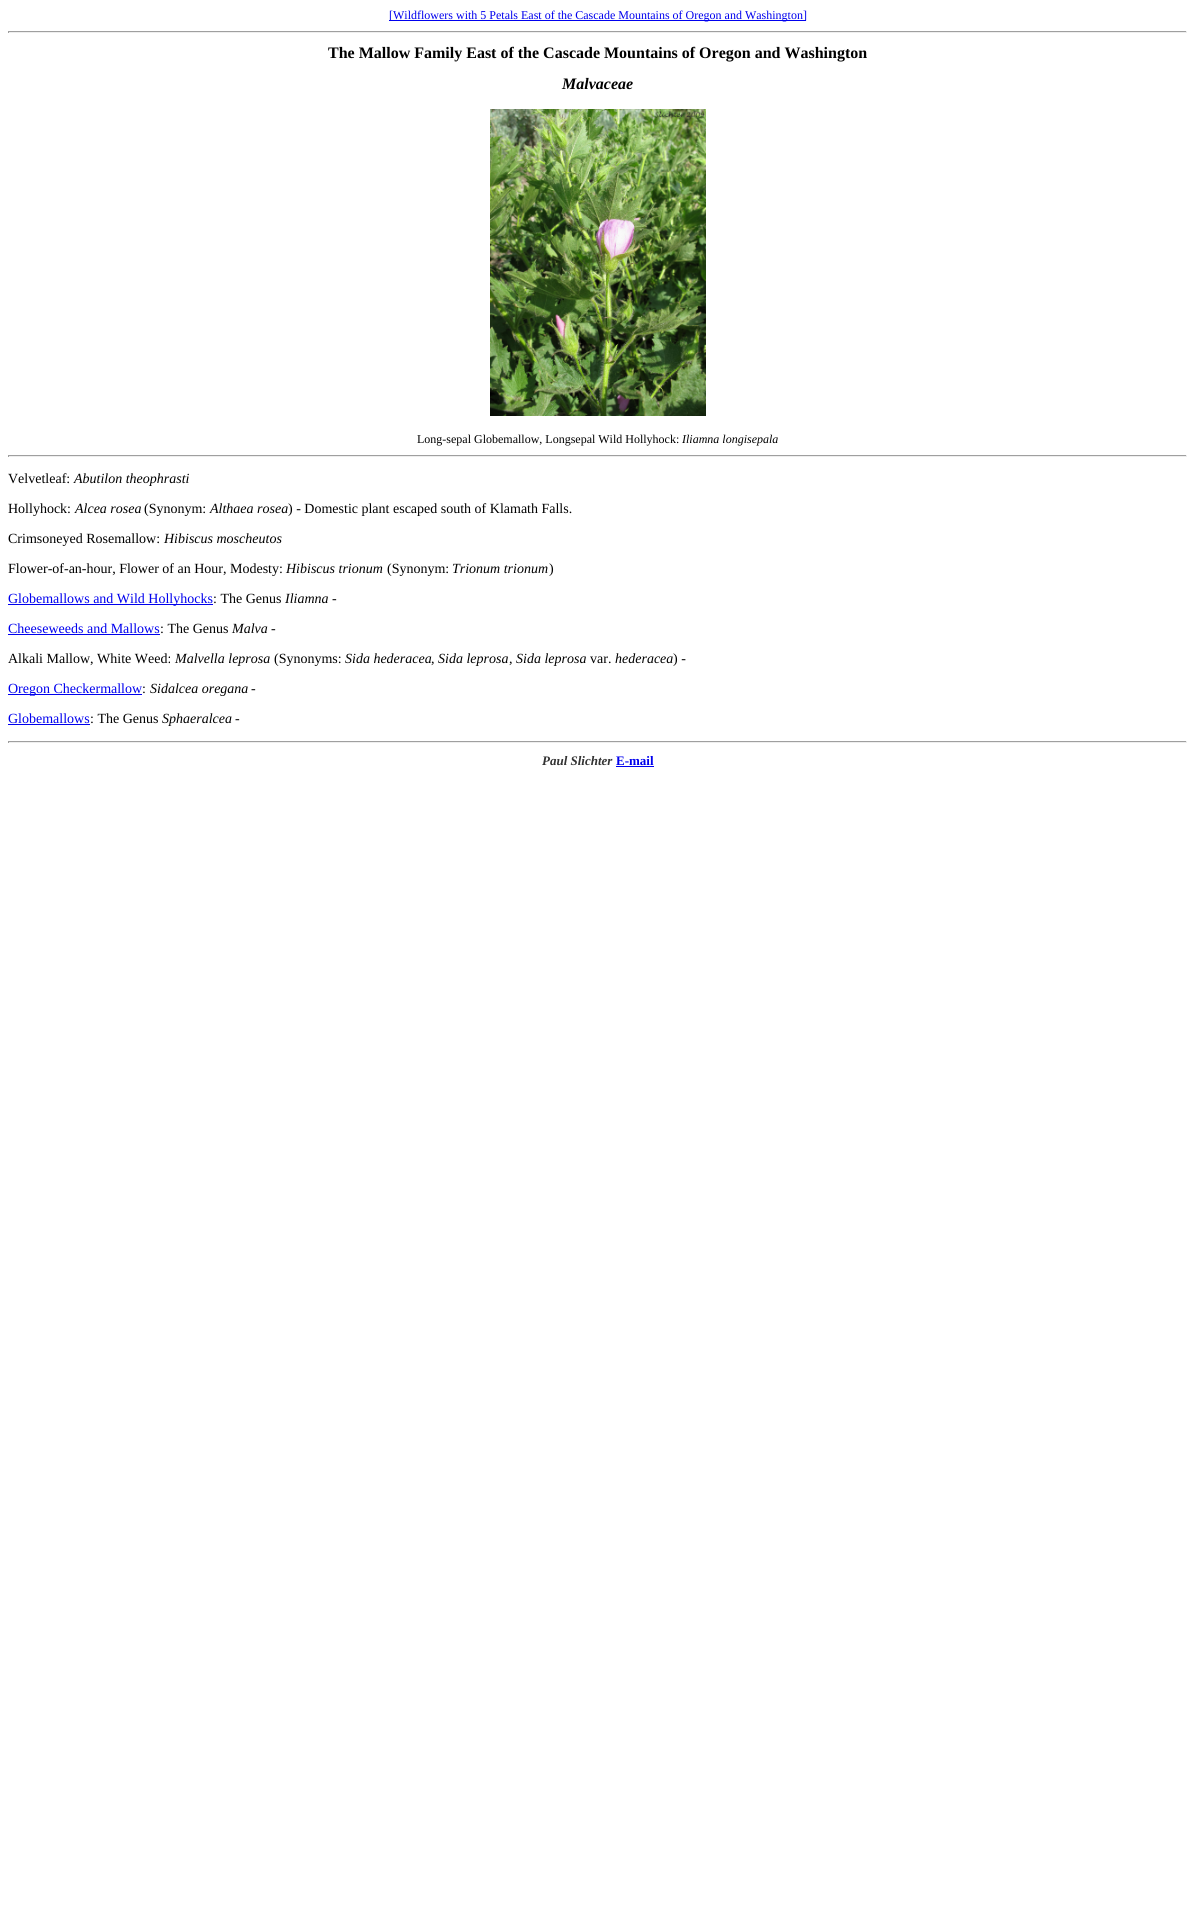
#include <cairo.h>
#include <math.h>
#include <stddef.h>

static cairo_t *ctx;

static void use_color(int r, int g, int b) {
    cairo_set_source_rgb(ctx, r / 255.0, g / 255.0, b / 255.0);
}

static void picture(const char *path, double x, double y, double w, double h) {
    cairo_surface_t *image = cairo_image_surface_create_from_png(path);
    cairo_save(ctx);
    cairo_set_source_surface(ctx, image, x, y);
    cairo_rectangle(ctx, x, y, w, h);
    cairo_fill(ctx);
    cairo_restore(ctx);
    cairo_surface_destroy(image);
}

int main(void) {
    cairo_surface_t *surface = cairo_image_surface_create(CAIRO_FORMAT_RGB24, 1195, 1913);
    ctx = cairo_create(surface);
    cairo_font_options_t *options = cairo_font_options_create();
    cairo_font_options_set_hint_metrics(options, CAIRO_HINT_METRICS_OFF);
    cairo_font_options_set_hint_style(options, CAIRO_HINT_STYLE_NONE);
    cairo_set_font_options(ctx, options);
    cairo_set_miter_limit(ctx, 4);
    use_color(255, 255, 255);
    cairo_paint(ctx);
    use_color(0, 0, 238);
    cairo_rectangle(ctx, 389, 20, 417, 1);
    cairo_fill(ctx);
    cairo_select_font_face(ctx, "Liberation Serif", CAIRO_FONT_SLANT_NORMAL, CAIRO_FONT_WEIGHT_NORMAL);
    cairo_set_font_size(ctx, 12);
    cairo_move_to(ctx, 389, 19);
    cairo_show_text(ctx, "[Wildflowers with 5 Petals East of the Cascade Mountains of Oregon and Washington]");
    use_color(159, 159, 159);
    cairo_rectangle(ctx, 8, 31, 1179, 1);
    cairo_fill(ctx);
    use_color(238, 238, 238);
    cairo_rectangle(ctx, 1186, 31, 1, 2);
    cairo_fill(ctx);
    cairo_rectangle(ctx, 8, 32, 1179, 1);
    cairo_fill(ctx);
    use_color(159, 159, 159);
    cairo_rectangle(ctx, 8, 31, 1, 2);
    cairo_fill(ctx);
    cairo_select_font_face(ctx, "Liberation Serif", CAIRO_FONT_SLANT_NORMAL, CAIRO_FONT_WEIGHT_BOLD);
    cairo_set_font_size(ctx, 16);
    use_color(0, 0, 0);
    cairo_move_to(ctx, 328, 58);
    cairo_show_text(ctx, "The Mallow Family East of the Cascade Mountains of Oregon and Washington");
    cairo_select_font_face(ctx, "Liberation Serif", CAIRO_FONT_SLANT_ITALIC, CAIRO_FONT_WEIGHT_BOLD);
    cairo_move_to(ctx, 562, 89);
    cairo_show_text(ctx, "Malvaceae");
    picture("img1.png", 490, 109, 216, 307);
    cairo_select_font_face(ctx, "Liberation Serif", CAIRO_FONT_SLANT_NORMAL, CAIRO_FONT_WEIGHT_NORMAL);
    cairo_set_font_size(ctx, 12);
    cairo_move_to(ctx, 417, 443);
    cairo_show_text(ctx, "Long-sepal Globemallow, Longsepal Wild Hollyhock:");
    cairo_select_font_face(ctx, "Liberation Serif", CAIRO_FONT_SLANT_ITALIC, CAIRO_FONT_WEIGHT_NORMAL);
    cairo_move_to(ctx, 682, 443);
    cairo_show_text(ctx, "Iliamna longisepala");
    use_color(159, 159, 159);
    cairo_rectangle(ctx, 8, 455, 1179, 1);
    cairo_fill(ctx);
    use_color(238, 238, 238);
    cairo_rectangle(ctx, 1186, 455, 1, 2);
    cairo_fill(ctx);
    cairo_rectangle(ctx, 8, 456, 1179, 1);
    cairo_fill(ctx);
    use_color(159, 159, 159);
    cairo_rectangle(ctx, 8, 455, 1, 2);
    cairo_fill(ctx);
    cairo_select_font_face(ctx, "Liberation Serif", CAIRO_FONT_SLANT_NORMAL, CAIRO_FONT_WEIGHT_NORMAL);
    cairo_set_font_size(ctx, 14);
    use_color(0, 0, 0);
    cairo_move_to(ctx, 8, 483);
    cairo_show_text(ctx, "Velvetleaf:");
    cairo_select_font_face(ctx, "Liberation Serif", CAIRO_FONT_SLANT_ITALIC, CAIRO_FONT_WEIGHT_NORMAL);
    cairo_move_to(ctx, 74, 483);
    cairo_show_text(ctx, "Abutilon theophrasti");
    cairo_select_font_face(ctx, "Liberation Serif", CAIRO_FONT_SLANT_NORMAL, CAIRO_FONT_WEIGHT_NORMAL);
    cairo_move_to(ctx, 8, 513);
    cairo_show_text(ctx, "Hollyhock:");
    cairo_select_font_face(ctx, "Liberation Serif", CAIRO_FONT_SLANT_ITALIC, CAIRO_FONT_WEIGHT_NORMAL);
    cairo_move_to(ctx, 75, 513);
    cairo_show_text(ctx, "Alcea rosea");
    cairo_select_font_face(ctx, "Liberation Serif", CAIRO_FONT_SLANT_NORMAL, CAIRO_FONT_WEIGHT_NORMAL);
    cairo_move_to(ctx, 144, 513);
    cairo_show_text(ctx, "(Synonym:");
    cairo_select_font_face(ctx, "Liberation Serif", CAIRO_FONT_SLANT_ITALIC, CAIRO_FONT_WEIGHT_NORMAL);
    cairo_move_to(ctx, 210, 513);
    cairo_show_text(ctx, "Althaea rosea");
    cairo_select_font_face(ctx, "Liberation Serif", CAIRO_FONT_SLANT_NORMAL, CAIRO_FONT_WEIGHT_NORMAL);
    cairo_move_to(ctx, 288, 513);
    cairo_show_text(ctx, ") - Domestic plant escaped south of Klamath Falls.");
    cairo_move_to(ctx, 8, 543);
    cairo_show_text(ctx, "Crimsoneyed Rosemallow:");
    cairo_select_font_face(ctx, "Liberation Serif", CAIRO_FONT_SLANT_ITALIC, CAIRO_FONT_WEIGHT_NORMAL);
    cairo_move_to(ctx, 164, 543);
    cairo_show_text(ctx, "Hibiscus moscheutos");
    cairo_select_font_face(ctx, "Liberation Serif", CAIRO_FONT_SLANT_NORMAL, CAIRO_FONT_WEIGHT_NORMAL);
    cairo_move_to(ctx, 8, 573);
    cairo_show_text(ctx, "Flower-of-an-hour, Flower of an Hour, Modesty:");
    cairo_select_font_face(ctx, "Liberation Serif", CAIRO_FONT_SLANT_ITALIC, CAIRO_FONT_WEIGHT_NORMAL);
    cairo_move_to(ctx, 286, 573);
    cairo_show_text(ctx, "Hibiscus trionum");
    cairo_select_font_face(ctx, "Liberation Serif", CAIRO_FONT_SLANT_NORMAL, CAIRO_FONT_WEIGHT_NORMAL);
    cairo_move_to(ctx, 387, 573);
    cairo_show_text(ctx, "(Synonym:");
    cairo_select_font_face(ctx, "Liberation Serif", CAIRO_FONT_SLANT_ITALIC, CAIRO_FONT_WEIGHT_NORMAL);
    cairo_move_to(ctx, 452, 573);
    cairo_show_text(ctx, "Trionum trionum");
    cairo_select_font_face(ctx, "Liberation Serif", CAIRO_FONT_SLANT_NORMAL, CAIRO_FONT_WEIGHT_NORMAL);
    cairo_move_to(ctx, 549, 573);
    cairo_show_text(ctx, ")");
    use_color(0, 0, 238);
    cairo_rectangle(ctx, 8, 604, 205, 1);
    cairo_fill(ctx);
    cairo_move_to(ctx, 8, 603);
    cairo_show_text(ctx, "Globemallows and Wild Hollyhocks");
    use_color(0, 0, 0);
    cairo_move_to(ctx, 213, 603);
    cairo_show_text(ctx, ": The Genus");
    cairo_select_font_face(ctx, "Liberation Serif", CAIRO_FONT_SLANT_ITALIC, CAIRO_FONT_WEIGHT_NORMAL);
    cairo_move_to(ctx, 285, 603);
    cairo_show_text(ctx, "Iliamna");
    cairo_select_font_face(ctx, "Liberation Serif", CAIRO_FONT_SLANT_NORMAL, CAIRO_FONT_WEIGHT_NORMAL);
    cairo_move_to(ctx, 332, 603);
    cairo_show_text(ctx, "-");
    use_color(0, 0, 238);
    cairo_move_to(ctx, 8, 633);
    cairo_show_text(ctx, "Cheeseweeds and Mallows");
    cairo_rectangle(ctx, 8, 634, 152, 1);
    cairo_fill(ctx);
    use_color(0, 0, 0);
    cairo_move_to(ctx, 160, 633);
    cairo_show_text(ctx, ": The Genus");
    cairo_select_font_face(ctx, "Liberation Serif", CAIRO_FONT_SLANT_ITALIC, CAIRO_FONT_WEIGHT_NORMAL);
    cairo_move_to(ctx, 232, 633);
    cairo_show_text(ctx, "Malva");
    cairo_select_font_face(ctx, "Liberation Serif", CAIRO_FONT_SLANT_NORMAL, CAIRO_FONT_WEIGHT_NORMAL);
    cairo_move_to(ctx, 271, 633);
    cairo_show_text(ctx, "-");
    cairo_move_to(ctx, 8, 663);
    cairo_show_text(ctx, "Alkali Mallow, White Weed:");
    cairo_select_font_face(ctx, "Liberation Serif", CAIRO_FONT_SLANT_ITALIC, CAIRO_FONT_WEIGHT_NORMAL);
    cairo_move_to(ctx, 175, 663);
    cairo_show_text(ctx, "Malvella leprosa");
    cairo_select_font_face(ctx, "Liberation Serif", CAIRO_FONT_SLANT_NORMAL, CAIRO_FONT_WEIGHT_NORMAL);
    cairo_move_to(ctx, 274, 663);
    cairo_show_text(ctx, "(Synonyms:");
    cairo_select_font_face(ctx, "Liberation Serif", CAIRO_FONT_SLANT_ITALIC, CAIRO_FONT_WEIGHT_NORMAL);
    cairo_move_to(ctx, 345, 663);
    cairo_show_text(ctx, "Sida hederacea");
    cairo_select_font_face(ctx, "Liberation Serif", CAIRO_FONT_SLANT_NORMAL, CAIRO_FONT_WEIGHT_NORMAL);
    cairo_move_to(ctx, 431, 663);
    cairo_show_text(ctx, ",");
    cairo_select_font_face(ctx, "Liberation Serif", CAIRO_FONT_SLANT_ITALIC, CAIRO_FONT_WEIGHT_NORMAL);
    cairo_move_to(ctx, 438, 663);
    cairo_show_text(ctx, "Sida leprosa");
    cairo_select_font_face(ctx, "Liberation Serif", CAIRO_FONT_SLANT_NORMAL, CAIRO_FONT_WEIGHT_NORMAL);
    cairo_move_to(ctx, 509, 663);
    cairo_show_text(ctx, ",");
    cairo_select_font_face(ctx, "Liberation Serif", CAIRO_FONT_SLANT_ITALIC, CAIRO_FONT_WEIGHT_NORMAL);
    cairo_move_to(ctx, 516, 663);
    cairo_show_text(ctx, "Sida leprosa");
    cairo_select_font_face(ctx, "Liberation Serif", CAIRO_FONT_SLANT_NORMAL, CAIRO_FONT_WEIGHT_NORMAL);
    cairo_move_to(ctx, 590, 663);
    cairo_show_text(ctx, "var.");
    cairo_select_font_face(ctx, "Liberation Serif", CAIRO_FONT_SLANT_ITALIC, CAIRO_FONT_WEIGHT_NORMAL);
    cairo_move_to(ctx, 615, 663);
    cairo_show_text(ctx, "hederacea");
    cairo_select_font_face(ctx, "Liberation Serif", CAIRO_FONT_SLANT_NORMAL, CAIRO_FONT_WEIGHT_NORMAL);
    cairo_move_to(ctx, 673, 663);
    cairo_show_text(ctx, ") -");
    use_color(0, 0, 238);
    cairo_rectangle(ctx, 8, 694, 134, 1);
    cairo_fill(ctx);
    cairo_move_to(ctx, 8, 693);
    cairo_show_text(ctx, "Oregon Checkermallow");
    use_color(0, 0, 0);
    cairo_move_to(ctx, 142, 693);
    cairo_show_text(ctx, ":");
    cairo_select_font_face(ctx, "Liberation Serif", CAIRO_FONT_SLANT_ITALIC, CAIRO_FONT_WEIGHT_NORMAL);
    cairo_move_to(ctx, 150, 693);
    cairo_show_text(ctx, "Sidalcea oregana");
    cairo_select_font_face(ctx, "Liberation Serif", CAIRO_FONT_SLANT_NORMAL, CAIRO_FONT_WEIGHT_NORMAL);
    cairo_move_to(ctx, 251, 693);
    cairo_show_text(ctx, "-");
    use_color(0, 0, 238);
    cairo_move_to(ctx, 8, 723);
    cairo_show_text(ctx, "Globemallows");
    cairo_rectangle(ctx, 8, 724, 82, 1);
    cairo_fill(ctx);
    use_color(0, 0, 0);
    cairo_move_to(ctx, 90, 723);
    cairo_show_text(ctx, ": The Genus");
    cairo_select_font_face(ctx, "Liberation Serif", CAIRO_FONT_SLANT_ITALIC, CAIRO_FONT_WEIGHT_NORMAL);
    cairo_move_to(ctx, 162, 723);
    cairo_show_text(ctx, "Sphaeralcea");
    cairo_select_font_face(ctx, "Liberation Serif", CAIRO_FONT_SLANT_NORMAL, CAIRO_FONT_WEIGHT_NORMAL);
    cairo_move_to(ctx, 235, 723);
    cairo_show_text(ctx, "-");
    use_color(159, 159, 159);
    cairo_rectangle(ctx, 8, 741, 1179, 1);
    cairo_fill(ctx);
    use_color(238, 238, 238);
    cairo_rectangle(ctx, 1186, 741, 1, 2);
    cairo_fill(ctx);
    cairo_rectangle(ctx, 8, 742, 1179, 1);
    cairo_fill(ctx);
    use_color(159, 159, 159);
    cairo_rectangle(ctx, 8, 741, 1, 2);
    cairo_fill(ctx);
    cairo_select_font_face(ctx, "Liberation Serif", CAIRO_FONT_SLANT_ITALIC, CAIRO_FONT_WEIGHT_BOLD);
    cairo_set_font_size(ctx, 13);
    use_color(51, 51, 51);
    cairo_move_to(ctx, 542, 765);
    cairo_show_text(ctx, "Paul Slichter");
    cairo_select_font_face(ctx, "Liberation Serif", CAIRO_FONT_SLANT_NORMAL, CAIRO_FONT_WEIGHT_BOLD);
    use_color(0, 0, 238);
    cairo_move_to(ctx, 616, 765);
    cairo_show_text(ctx, "E-mail");
    cairo_rectangle(ctx, 616, 766, 38, 1);
    cairo_fill(ctx);
    cairo_surface_write_to_png(surface, "result.png");
    cairo_font_options_destroy(options);
    cairo_destroy(ctx);
    cairo_surface_destroy(surface);
    return 0;
}
